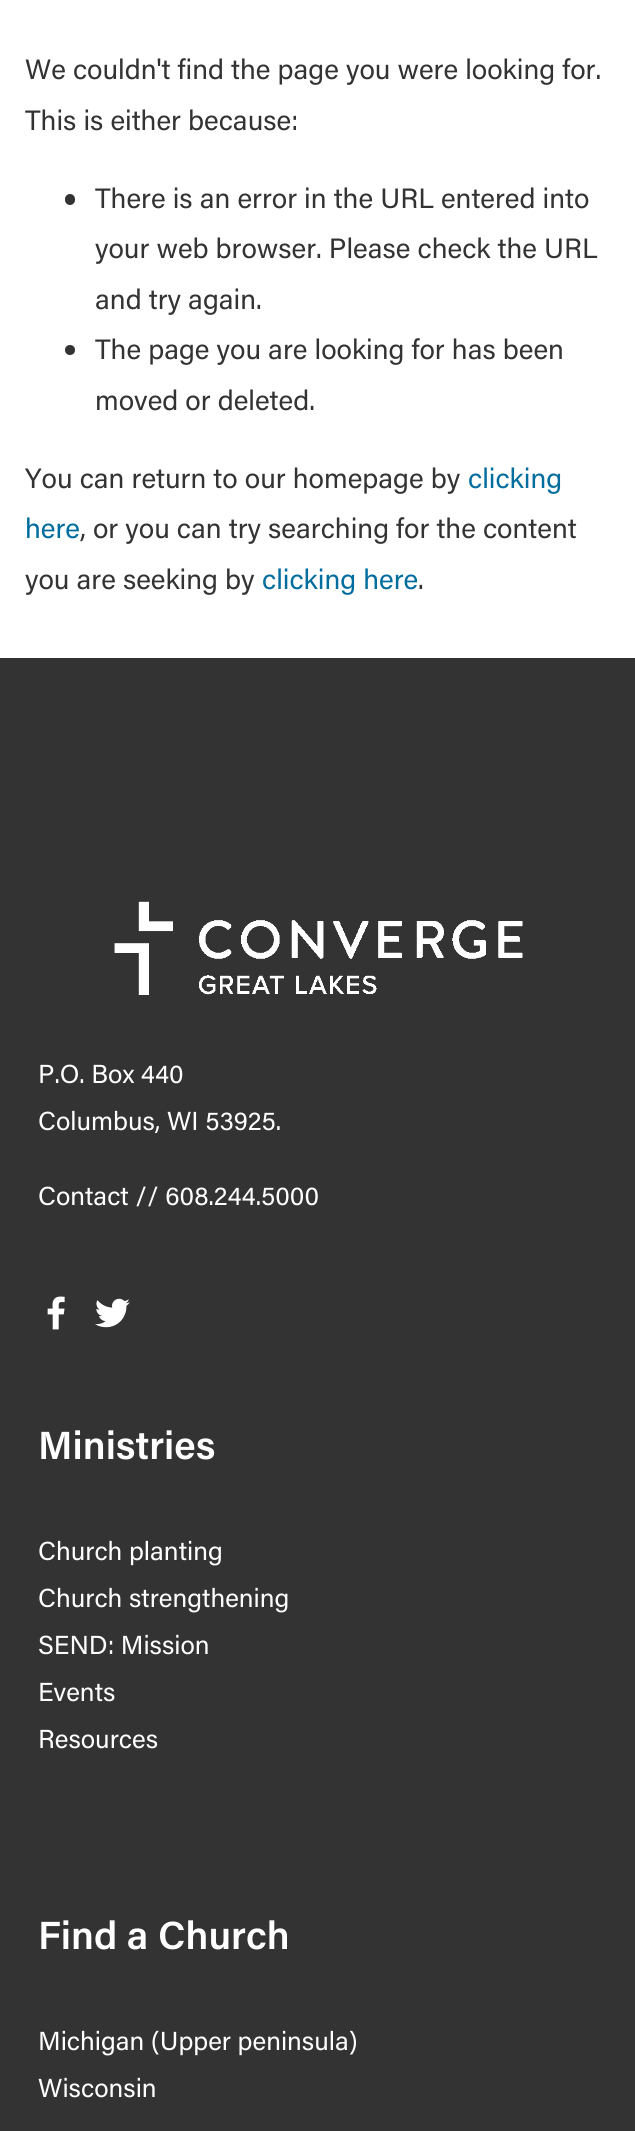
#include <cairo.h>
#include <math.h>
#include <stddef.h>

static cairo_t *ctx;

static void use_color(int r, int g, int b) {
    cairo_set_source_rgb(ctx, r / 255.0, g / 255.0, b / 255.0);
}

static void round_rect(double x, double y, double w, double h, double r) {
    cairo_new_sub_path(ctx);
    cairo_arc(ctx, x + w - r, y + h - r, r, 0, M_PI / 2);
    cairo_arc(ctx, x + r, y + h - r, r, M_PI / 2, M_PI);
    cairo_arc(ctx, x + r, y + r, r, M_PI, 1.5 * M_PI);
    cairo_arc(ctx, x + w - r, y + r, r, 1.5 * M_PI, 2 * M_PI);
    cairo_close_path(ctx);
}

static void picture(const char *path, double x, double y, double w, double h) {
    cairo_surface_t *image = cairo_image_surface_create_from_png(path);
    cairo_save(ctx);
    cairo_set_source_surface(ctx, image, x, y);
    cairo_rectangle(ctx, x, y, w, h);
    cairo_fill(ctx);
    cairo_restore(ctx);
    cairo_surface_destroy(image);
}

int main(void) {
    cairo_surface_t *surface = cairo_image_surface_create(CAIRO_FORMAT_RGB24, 635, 2131);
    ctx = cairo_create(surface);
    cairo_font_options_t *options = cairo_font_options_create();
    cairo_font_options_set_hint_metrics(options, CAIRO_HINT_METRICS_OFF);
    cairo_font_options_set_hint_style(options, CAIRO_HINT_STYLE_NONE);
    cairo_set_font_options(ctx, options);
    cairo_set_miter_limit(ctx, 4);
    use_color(255, 255, 255);
    cairo_paint(ctx);
    cairo_select_font_face(ctx, "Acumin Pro", CAIRO_FONT_SLANT_NORMAL, CAIRO_FONT_WEIGHT_NORMAL);
    cairo_set_font_size(ctx, 28);
    use_color(51, 51, 51);
    cairo_move_to(ctx, 25, 79);
    cairo_show_text(ctx, "We couldn't find the page you were looking for.");
    cairo_move_to(ctx, 25, 130);
    cairo_show_text(ctx, "This is either because:");
    round_rect(65, 194, 10, 11, 5);
    cairo_fill(ctx);
    cairo_move_to(ctx, 95, 208);
    cairo_show_text(ctx, "There is an error in the URL entered into");
    cairo_move_to(ctx, 95, 258);
    cairo_show_text(ctx, "your web browser. Please check the URL");
    cairo_move_to(ctx, 95, 309);
    cairo_show_text(ctx, "and try again.");
    cairo_new_path(ctx);
    cairo_arc(ctx, 70, 350, 5, 0, 2 * M_PI);
    cairo_fill(ctx);
    cairo_move_to(ctx, 95, 359);
    cairo_show_text(ctx, "The page you are looking for has been");
    cairo_move_to(ctx, 95, 410);
    cairo_show_text(ctx, "moved or deleted.");
    cairo_move_to(ctx, 25, 488);
    cairo_show_text(ctx, "You can return to our homepage by");
    use_color(0, 109, 158);
    cairo_move_to(ctx, 468, 488);
    cairo_show_text(ctx, "clicking");
    cairo_move_to(ctx, 25, 538);
    cairo_show_text(ctx, "here");
    use_color(51, 51, 51);
    cairo_move_to(ctx, 80, 538);
    cairo_show_text(ctx, ", or you can try searching for the content");
    cairo_move_to(ctx, 25, 589);
    cairo_show_text(ctx, "you are seeking by");
    use_color(0, 109, 158);
    cairo_move_to(ctx, 262, 589);
    cairo_show_text(ctx, "clicking here");
    use_color(51, 51, 51);
    cairo_move_to(ctx, 418, 589);
    cairo_show_text(ctx, ".");
    cairo_rectangle(ctx, 0, 658, 635, 1473);
    cairo_fill(ctx);
    picture("img1.png", 114, 901, 409, 94);
    cairo_set_font_size(ctx, 26.1);
    use_color(255, 255, 255);
    cairo_move_to(ctx, 38, 1083);
    cairo_show_text(ctx, "P.O. Box 440");
    cairo_move_to(ctx, 38, 1130);
    cairo_show_text(ctx, "Columbus, WI 53925.");
    cairo_move_to(ctx, 38, 1205);
    cairo_show_text(ctx, "Contact // 608.244.5000");
    picture("img2.png", 47, 1296, 18, 34);
    picture("img3.png", 95, 1298, 35, 30);
    cairo_select_font_face(ctx, "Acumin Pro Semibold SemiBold", CAIRO_FONT_SLANT_NORMAL, CAIRO_FONT_WEIGHT_NORMAL);
    cairo_set_font_size(ctx, 39.25);
    cairo_move_to(ctx, 38, 1459);
    cairo_show_text(ctx, "Ministries");
    cairo_select_font_face(ctx, "Acumin Pro", CAIRO_FONT_SLANT_NORMAL, CAIRO_FONT_WEIGHT_NORMAL);
    cairo_set_font_size(ctx, 26.1);
    cairo_move_to(ctx, 38, 1560);
    cairo_show_text(ctx, "Church planting");
    cairo_move_to(ctx, 38, 1607);
    cairo_show_text(ctx, "Church strengthening");
    cairo_move_to(ctx, 38, 1654);
    cairo_show_text(ctx, "SEND: Mission");
    cairo_move_to(ctx, 38, 1701);
    cairo_show_text(ctx, "Events");
    cairo_move_to(ctx, 38, 1748);
    cairo_show_text(ctx, "Resources");
    cairo_select_font_face(ctx, "Acumin Pro Semibold SemiBold", CAIRO_FONT_SLANT_NORMAL, CAIRO_FONT_WEIGHT_NORMAL);
    cairo_set_font_size(ctx, 39.25);
    cairo_move_to(ctx, 38, 1949);
    cairo_show_text(ctx, "Find a Church");
    cairo_select_font_face(ctx, "Acumin Pro", CAIRO_FONT_SLANT_NORMAL, CAIRO_FONT_WEIGHT_NORMAL);
    cairo_set_font_size(ctx, 26.1);
    cairo_move_to(ctx, 38, 2050);
    cairo_show_text(ctx, "Michigan (Upper peninsula)");
    cairo_move_to(ctx, 38, 2097);
    cairo_show_text(ctx, "Wisconsin");
    cairo_surface_write_to_png(surface, "result.png");
    cairo_font_options_destroy(options);
    cairo_destroy(ctx);
    cairo_surface_destroy(surface);
    return 0;
}
